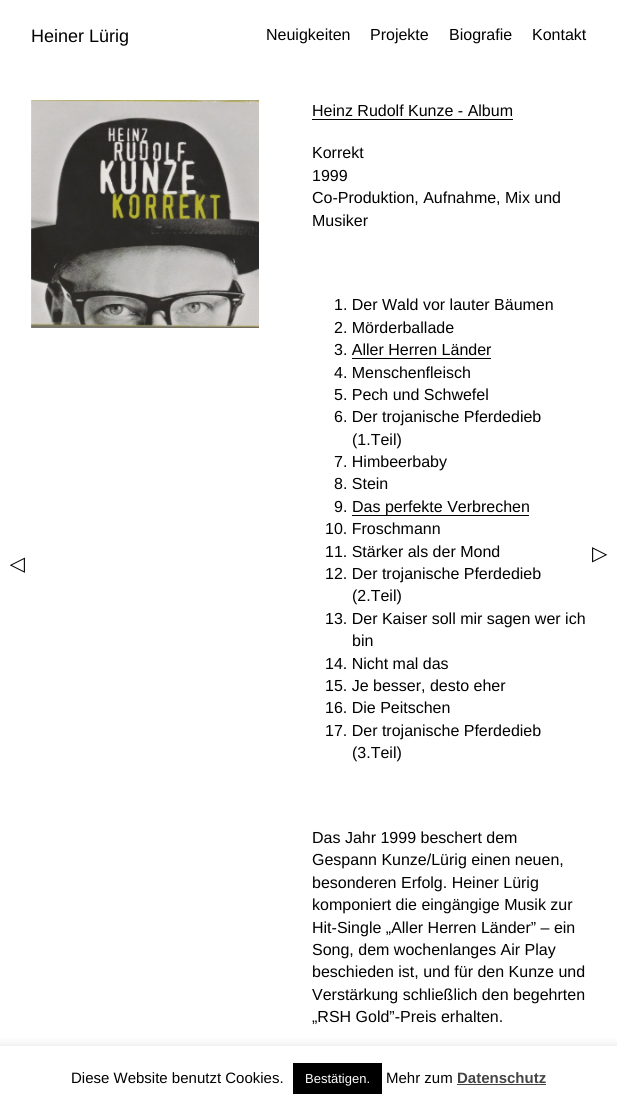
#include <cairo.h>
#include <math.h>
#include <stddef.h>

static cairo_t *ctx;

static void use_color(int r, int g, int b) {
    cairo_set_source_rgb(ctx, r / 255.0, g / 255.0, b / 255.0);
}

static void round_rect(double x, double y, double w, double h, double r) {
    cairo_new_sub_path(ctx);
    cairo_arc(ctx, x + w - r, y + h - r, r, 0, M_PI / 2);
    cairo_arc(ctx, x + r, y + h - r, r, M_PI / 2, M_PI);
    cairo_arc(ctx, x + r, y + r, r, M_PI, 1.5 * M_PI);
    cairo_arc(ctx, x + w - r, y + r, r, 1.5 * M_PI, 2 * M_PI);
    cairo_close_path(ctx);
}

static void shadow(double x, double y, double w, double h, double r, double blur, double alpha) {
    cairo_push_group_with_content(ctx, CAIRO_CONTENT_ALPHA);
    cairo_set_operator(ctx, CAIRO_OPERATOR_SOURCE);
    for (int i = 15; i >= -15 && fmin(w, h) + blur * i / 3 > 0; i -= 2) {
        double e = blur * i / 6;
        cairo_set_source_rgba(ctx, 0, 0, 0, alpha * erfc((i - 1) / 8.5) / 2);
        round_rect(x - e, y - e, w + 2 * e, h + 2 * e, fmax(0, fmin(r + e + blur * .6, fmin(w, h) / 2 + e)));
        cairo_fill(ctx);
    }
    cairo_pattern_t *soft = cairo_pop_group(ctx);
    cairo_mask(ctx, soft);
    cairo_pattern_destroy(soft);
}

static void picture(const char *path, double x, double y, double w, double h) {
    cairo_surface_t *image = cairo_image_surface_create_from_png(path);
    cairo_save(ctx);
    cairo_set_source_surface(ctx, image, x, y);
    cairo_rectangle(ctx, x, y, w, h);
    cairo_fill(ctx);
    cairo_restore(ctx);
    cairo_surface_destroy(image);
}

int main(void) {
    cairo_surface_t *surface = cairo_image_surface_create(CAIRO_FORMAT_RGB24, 617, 1106);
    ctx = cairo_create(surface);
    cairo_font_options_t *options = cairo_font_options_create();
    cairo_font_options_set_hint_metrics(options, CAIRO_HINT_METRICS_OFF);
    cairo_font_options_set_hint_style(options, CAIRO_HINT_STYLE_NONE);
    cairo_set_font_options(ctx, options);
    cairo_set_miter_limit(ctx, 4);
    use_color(255, 255, 255);
    cairo_paint(ctx);
    cairo_select_font_face(ctx, "Liberation Sans", CAIRO_FONT_SLANT_NORMAL, CAIRO_FONT_WEIGHT_NORMAL);
    cairo_set_font_size(ctx, 18);
    use_color(0, 0, 0);
    cairo_move_to(ctx, 31, 42);
    cairo_show_text(ctx, "Heiner Lürig");
    cairo_set_font_size(ctx, 16);
    cairo_move_to(ctx, 266, 40);
    cairo_show_text(ctx, "Neuigkeiten");
    cairo_move_to(ctx, 370, 40);
    cairo_show_text(ctx, "Projekte");
    cairo_move_to(ctx, 449, 40);
    cairo_show_text(ctx, "Biografie");
    cairo_move_to(ctx, 532, 40);
    cairo_show_text(ctx, "Kontakt");
    picture("img1.png", 31, 100, 228, 228);
    cairo_move_to(ctx, 312, 116);
    cairo_show_text(ctx, "Heinz Rudolf Kunze - Album");
    cairo_rectangle(ctx, 312, 119, 201, 1);
    cairo_fill(ctx);
    cairo_move_to(ctx, 312, 158);
    cairo_show_text(ctx, "Korrekt");
    cairo_move_to(ctx, 312, 181);
    cairo_show_text(ctx, "1999");
    cairo_move_to(ctx, 312, 203);
    cairo_show_text(ctx, "Co-Produktion, Aufnahme, Mix und");
    cairo_move_to(ctx, 312, 226);
    cairo_show_text(ctx, "Musiker");
    cairo_move_to(ctx, 334, 310);
    cairo_show_text(ctx, "1. Der Wald vor lauter Bäumen");
    cairo_move_to(ctx, 334, 333);
    cairo_show_text(ctx, "2. Mörderballade");
    cairo_move_to(ctx, 334, 355);
    cairo_show_text(ctx, "3. Aller Herren Länder");
    cairo_rectangle(ctx, 352, 358, 139, 1);
    cairo_fill(ctx);
    cairo_move_to(ctx, 334, 378);
    cairo_show_text(ctx, "4. Menschenfleisch");
    cairo_move_to(ctx, 334, 400);
    cairo_show_text(ctx, "5. Pech und Schwefel");
    cairo_move_to(ctx, 334, 422);
    cairo_show_text(ctx, "6. Der trojanische Pferdedieb");
    cairo_move_to(ctx, 352, 445);
    cairo_show_text(ctx, "(1.Teil)");
    cairo_move_to(ctx, 334, 467);
    cairo_show_text(ctx, "7. Himbeerbaby");
    cairo_move_to(ctx, 334, 489);
    cairo_show_text(ctx, "8. Stein");
    cairo_move_to(ctx, 334, 512);
    cairo_show_text(ctx, "9.");
    cairo_rectangle(ctx, 352, 515, 177, 1);
    cairo_fill(ctx);
    cairo_move_to(ctx, 352, 512);
    cairo_show_text(ctx, "Das perfekte Verbrechen");
    cairo_move_to(ctx, 325, 534);
    cairo_show_text(ctx, "10. Froschmann");
    cairo_move_to(ctx, 325, 557);
    cairo_show_text(ctx, "11. Stärker als der Mond");
    cairo_move_to(ctx, 325, 579);
    cairo_show_text(ctx, "12. Der trojanische Pferdedieb");
    cairo_move_to(ctx, 352, 601);
    cairo_show_text(ctx, "(2.Teil)");
    cairo_move_to(ctx, 325, 624);
    cairo_show_text(ctx, "13. Der Kaiser soll mir sagen wer ich");
    cairo_move_to(ctx, 352, 646);
    cairo_show_text(ctx, "bin");
    cairo_move_to(ctx, 325, 669);
    cairo_show_text(ctx, "14. Nicht mal das");
    cairo_move_to(ctx, 325, 691);
    cairo_show_text(ctx, "15. Je besser, desto eher");
    cairo_move_to(ctx, 325, 713);
    cairo_show_text(ctx, "16. Die Peitschen");
    cairo_move_to(ctx, 325, 736);
    cairo_show_text(ctx, "17. Der trojanische Pferdedieb");
    cairo_move_to(ctx, 352, 758);
    cairo_show_text(ctx, "(3.Teil)");
    cairo_move_to(ctx, 312, 843);
    cairo_show_text(ctx, "Das Jahr 1999 beschert dem");
    cairo_move_to(ctx, 312, 865);
    cairo_show_text(ctx, "Gespann Kunze/Lürig einen neuen,");
    cairo_move_to(ctx, 312, 888);
    cairo_show_text(ctx, "besonderen Erfolg. Heiner Lürig");
    cairo_move_to(ctx, 312, 910);
    cairo_show_text(ctx, "komponiert die eingängige Musik zur");
    cairo_move_to(ctx, 312, 933);
    cairo_show_text(ctx, "Hit-Single „Aller Herren Länder” – ein");
    cairo_move_to(ctx, 312, 955);
    cairo_show_text(ctx, "Song, dem wochenlanges Air Play");
    cairo_move_to(ctx, 312, 977);
    cairo_show_text(ctx, "beschieden ist, und für den Kunze und");
    cairo_move_to(ctx, 312, 1000);
    cairo_show_text(ctx, "Verstärkung schließlich den begehrten");
    cairo_move_to(ctx, 312, 1022);
    cairo_show_text(ctx, "„RSH Gold”-Preis erhalten.");
    cairo_select_font_face(ctx, "DejaVu Sans", CAIRO_FONT_SLANT_NORMAL, CAIRO_FONT_WEIGHT_NORMAL);
    cairo_set_font_size(ctx, 20);
    cairo_move_to(ctx, 592, 560);
    cairo_show_text(ctx, "▷");
    cairo_save(ctx);
    cairo_translate(ctx, 25, 560);
    cairo_rotate(ctx, 180 * M_PI / 180);
    cairo_move_to(ctx, 0, 0);
    cairo_show_text(ctx, "▷");
    cairo_restore(ctx);
    cairo_save(ctx);
    cairo_rectangle(ctx, 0, 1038, 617, 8);
    cairo_clip(ctx);
    use_color(172, 171, 171);
    shadow(0, 1045, 617, 60, 0, 5, 0.3);
    cairo_restore(ctx);
    cairo_select_font_face(ctx, "Liberation Sans", CAIRO_FONT_SLANT_NORMAL, CAIRO_FONT_WEIGHT_NORMAL);
    cairo_set_font_size(ctx, 15);
    cairo_move_to(ctx, 71, 1083);
    cairo_show_text(ctx, "Diese Website benutzt Cookies.");
    cairo_rectangle(ctx, 293, 1063, 89, 31);
    cairo_fill(ctx);
    cairo_set_font_size(ctx, 13);
    use_color(255, 255, 255);
    cairo_move_to(ctx, 305, 1083);
    cairo_show_text(ctx, "Bestätigen.");
    cairo_set_font_size(ctx, 15);
    use_color(0, 0, 0);
    cairo_move_to(ctx, 386, 1083);
    cairo_show_text(ctx, "Mehr zum");
    cairo_select_font_face(ctx, "Liberation Sans", CAIRO_FONT_SLANT_NORMAL, CAIRO_FONT_WEIGHT_BOLD);
    use_color(68, 68, 68);
    cairo_move_to(ctx, 457, 1083);
    cairo_show_text(ctx, "Datenschutz");
    cairo_rectangle(ctx, 457, 1084, 89, 1);
    cairo_fill(ctx);
    cairo_surface_write_to_png(surface, "result.png");
    cairo_font_options_destroy(options);
    cairo_destroy(ctx);
    cairo_surface_destroy(surface);
    return 0;
}
